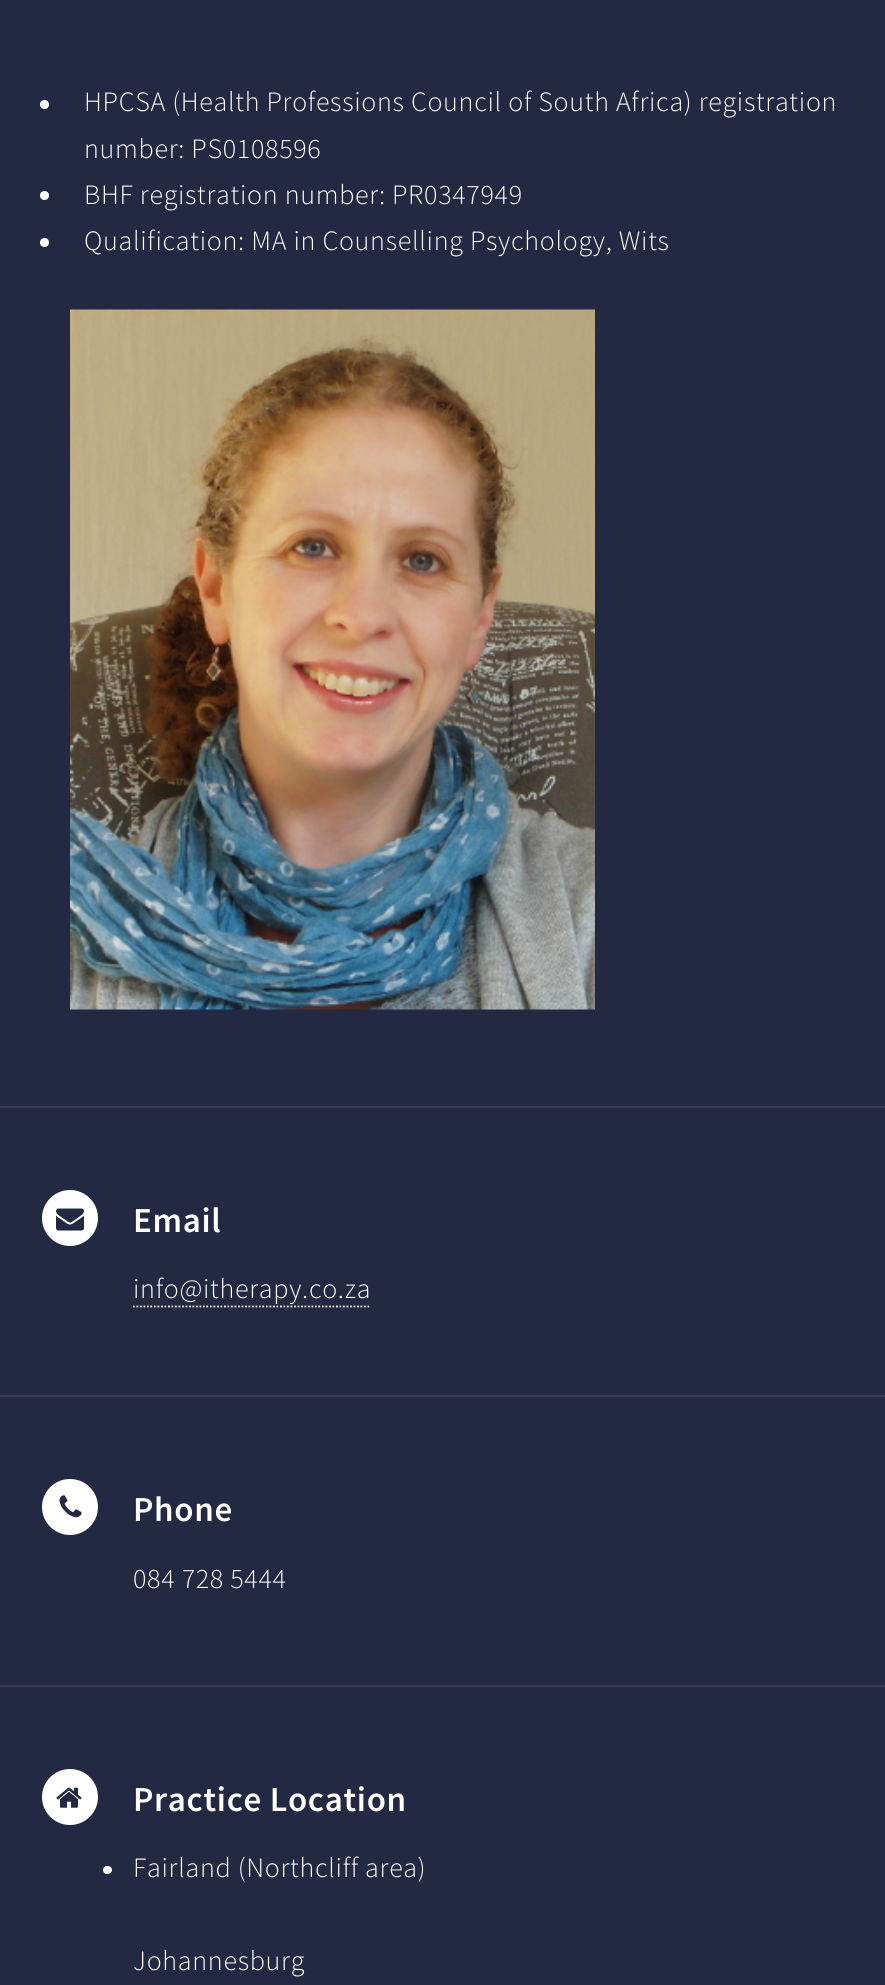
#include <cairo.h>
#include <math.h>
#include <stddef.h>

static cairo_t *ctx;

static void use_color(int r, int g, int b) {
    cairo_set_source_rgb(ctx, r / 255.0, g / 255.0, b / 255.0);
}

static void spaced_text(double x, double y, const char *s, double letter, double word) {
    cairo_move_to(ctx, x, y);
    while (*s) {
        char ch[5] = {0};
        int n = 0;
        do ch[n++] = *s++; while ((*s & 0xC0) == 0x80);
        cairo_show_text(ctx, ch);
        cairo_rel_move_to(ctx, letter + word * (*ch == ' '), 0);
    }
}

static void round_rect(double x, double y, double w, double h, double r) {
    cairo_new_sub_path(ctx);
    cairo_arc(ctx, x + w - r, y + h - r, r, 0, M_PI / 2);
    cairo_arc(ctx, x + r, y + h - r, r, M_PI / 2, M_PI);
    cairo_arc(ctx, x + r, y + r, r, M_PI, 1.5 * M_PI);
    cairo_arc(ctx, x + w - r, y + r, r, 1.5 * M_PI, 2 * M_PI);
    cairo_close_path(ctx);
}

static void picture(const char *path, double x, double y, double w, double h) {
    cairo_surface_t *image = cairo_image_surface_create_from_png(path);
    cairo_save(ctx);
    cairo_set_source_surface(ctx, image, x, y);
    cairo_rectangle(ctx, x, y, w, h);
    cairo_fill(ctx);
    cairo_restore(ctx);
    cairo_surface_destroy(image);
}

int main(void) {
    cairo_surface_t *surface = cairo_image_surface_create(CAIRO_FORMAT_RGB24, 885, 1985);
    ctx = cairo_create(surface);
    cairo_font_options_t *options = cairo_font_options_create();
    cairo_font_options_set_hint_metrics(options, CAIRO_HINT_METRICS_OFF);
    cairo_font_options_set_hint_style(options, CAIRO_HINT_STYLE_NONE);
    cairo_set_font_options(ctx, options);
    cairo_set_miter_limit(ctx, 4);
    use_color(36, 41, 67);
    cairo_paint(ctx);
    use_color(255, 255, 255);
    cairo_arc(ctx, 44.5, 104.5, 4.5, 0, 2 * M_PI);
    cairo_fill(ctx);
    cairo_select_font_face(ctx, "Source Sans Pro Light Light", CAIRO_FONT_SLANT_NORMAL, CAIRO_FONT_WEIGHT_NORMAL);
    cairo_set_font_size(ctx, 28);
    spaced_text(84, 111, "HPCSA (Health Professions Council of South Africa) registration", 0.7, 0);
    spaced_text(84, 158, "number: PS0108596", 0.7, 0);
    cairo_new_path(ctx);
    cairo_arc(ctx, 44.5, 195.5, 4.5, 0, 2 * M_PI);
    cairo_fill(ctx);
    spaced_text(84, 204, "BHF registration number: PR0347949", 0.7, 0);
    cairo_new_path(ctx);
    cairo_arc(ctx, 44.5, 242.5, 4.5, 0, 2 * M_PI);
    cairo_fill(ctx);
    spaced_text(84, 250, "Qualification: MA in Counselling Psychology, Wits", 0.7, 0);
    picture("img1.png", 70, 309, 525, 701);
    use_color(54, 58, 86);
    cairo_rectangle(ctx, 0, 1106, 885, 2);
    cairo_fill(ctx);
    use_color(255, 255, 255);
    cairo_arc(ctx, 70, 1218, 28, 0, 2 * M_PI);
    cairo_fill(ctx);
    picture("img2.png", 56, 1208, 28, 23);
    cairo_select_font_face(ctx, "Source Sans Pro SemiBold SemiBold", CAIRO_FONT_SLANT_NORMAL, CAIRO_FONT_WEIGHT_NORMAL);
    cairo_set_font_size(ctx, 35);
    spaced_text(133, 1232, "Email", 0.7, 0);
    cairo_select_font_face(ctx, "Source Sans Pro Light Light", CAIRO_FONT_SLANT_NORMAL, CAIRO_FONT_WEIGHT_NORMAL);
    cairo_set_font_size(ctx, 28);
    spaced_text(133, 1298, "info@itherapy.co.za", 0.7, 0);
    cairo_new_path(ctx);
    cairo_move_to(ctx, 133, 1306.5);
    cairo_line_to(ctx, 371, 1306.5);
    cairo_set_line_width(ctx, 1.8);
    cairo_set_dash(ctx, (double[]){1.75, 1.75}, 2, 0);
    cairo_stroke(ctx);
    use_color(54, 58, 86);
    cairo_rectangle(ctx, 0, 1395, 885, 2);
    cairo_fill(ctx);
    use_color(255, 255, 255);
    cairo_arc(ctx, 70, 1507, 28, 0, 2 * M_PI);
    cairo_fill(ctx);
    picture("img3.png", 59, 1495, 23, 23);
    cairo_select_font_face(ctx, "Source Sans Pro SemiBold SemiBold", CAIRO_FONT_SLANT_NORMAL, CAIRO_FONT_WEIGHT_NORMAL);
    cairo_set_font_size(ctx, 35);
    spaced_text(133, 1521, "Phone", 0.7, 0);
    cairo_select_font_face(ctx, "Source Sans Pro Light Light", CAIRO_FONT_SLANT_NORMAL, CAIRO_FONT_WEIGHT_NORMAL);
    cairo_set_font_size(ctx, 28);
    spaced_text(133, 1588, "084 728 5444", 0.7, 0);
    use_color(54, 58, 86);
    cairo_rectangle(ctx, 0, 1685, 885, 2);
    cairo_fill(ctx);
    use_color(255, 255, 255);
    cairo_arc(ctx, 70, 1797, 28, 0, 2 * M_PI);
    cairo_fill(ctx);
    picture("img4.png", 56, 1787, 26, 21);
    cairo_select_font_face(ctx, "Source Sans Pro SemiBold SemiBold", CAIRO_FONT_SLANT_NORMAL, CAIRO_FONT_WEIGHT_NORMAL);
    cairo_set_font_size(ctx, 35);
    spaced_text(133, 1811, "Practice Location", 0.7, 0);
    round_rect(103, 1866, 9, 8, 4);
    cairo_fill(ctx);
    cairo_select_font_face(ctx, "Source Sans Pro Light Light", CAIRO_FONT_SLANT_NORMAL, CAIRO_FONT_WEIGHT_NORMAL);
    cairo_set_font_size(ctx, 28);
    spaced_text(133, 1877, "Fairland (Northcliff area)", 0.7, 0);
    spaced_text(133, 1970, "Johannesburg", 0.7, 0);
    cairo_surface_write_to_png(surface, "result.png");
    cairo_font_options_destroy(options);
    cairo_destroy(ctx);
    cairo_surface_destroy(surface);
    return 0;
}
